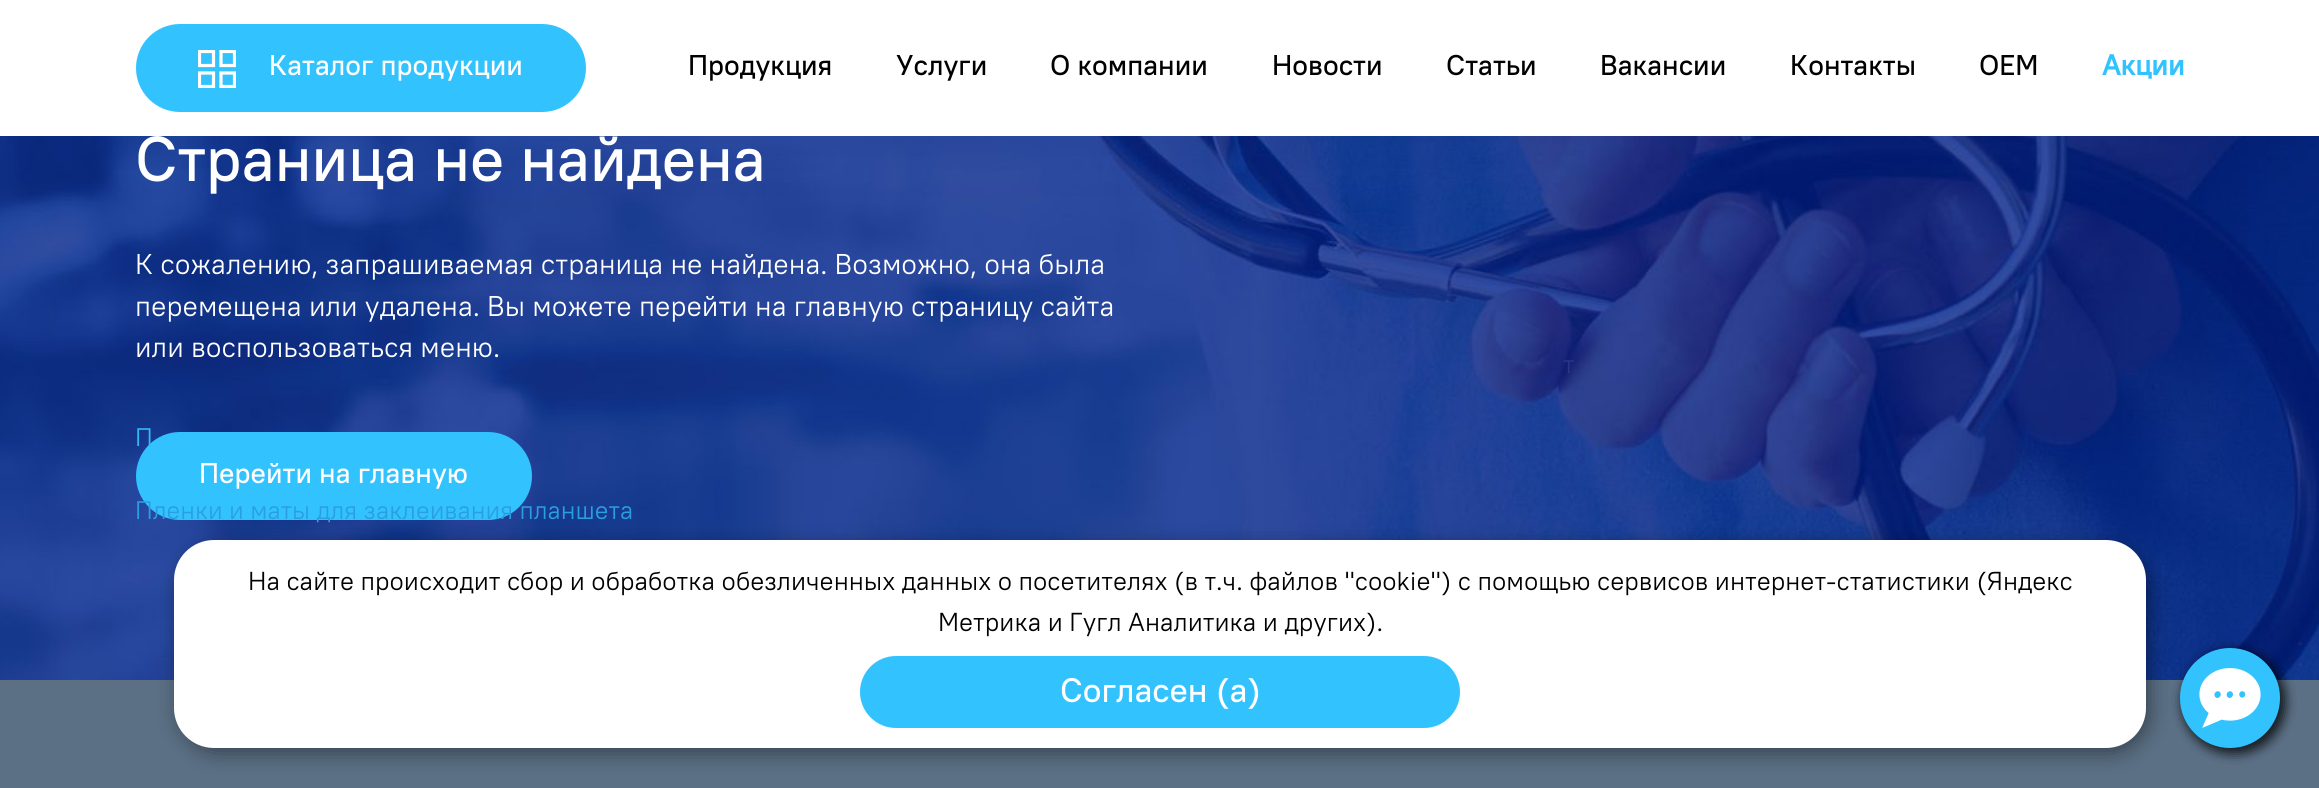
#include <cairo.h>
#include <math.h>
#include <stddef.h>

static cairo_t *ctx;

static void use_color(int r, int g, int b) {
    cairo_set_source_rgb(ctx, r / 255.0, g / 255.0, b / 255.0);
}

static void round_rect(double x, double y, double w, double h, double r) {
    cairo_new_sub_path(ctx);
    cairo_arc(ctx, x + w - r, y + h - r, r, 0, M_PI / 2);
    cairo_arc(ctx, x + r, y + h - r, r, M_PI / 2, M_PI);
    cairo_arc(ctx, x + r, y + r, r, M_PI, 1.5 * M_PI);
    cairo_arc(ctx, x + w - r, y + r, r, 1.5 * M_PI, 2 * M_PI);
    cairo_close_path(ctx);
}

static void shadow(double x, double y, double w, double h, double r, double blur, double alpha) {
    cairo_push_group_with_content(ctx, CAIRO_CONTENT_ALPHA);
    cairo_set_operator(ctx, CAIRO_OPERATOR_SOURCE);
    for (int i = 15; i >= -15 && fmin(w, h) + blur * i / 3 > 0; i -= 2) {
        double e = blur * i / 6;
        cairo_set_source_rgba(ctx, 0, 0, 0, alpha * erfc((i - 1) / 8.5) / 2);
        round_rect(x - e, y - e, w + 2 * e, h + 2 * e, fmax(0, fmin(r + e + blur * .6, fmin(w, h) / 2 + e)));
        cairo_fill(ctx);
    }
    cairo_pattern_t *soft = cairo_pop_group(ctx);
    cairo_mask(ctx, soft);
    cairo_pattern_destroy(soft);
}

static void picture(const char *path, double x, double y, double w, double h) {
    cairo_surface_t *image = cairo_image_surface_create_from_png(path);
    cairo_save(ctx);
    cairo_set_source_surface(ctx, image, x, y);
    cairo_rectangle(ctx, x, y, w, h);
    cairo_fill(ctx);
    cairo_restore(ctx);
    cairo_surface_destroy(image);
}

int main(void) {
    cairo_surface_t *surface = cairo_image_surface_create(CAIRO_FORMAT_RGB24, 2319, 788);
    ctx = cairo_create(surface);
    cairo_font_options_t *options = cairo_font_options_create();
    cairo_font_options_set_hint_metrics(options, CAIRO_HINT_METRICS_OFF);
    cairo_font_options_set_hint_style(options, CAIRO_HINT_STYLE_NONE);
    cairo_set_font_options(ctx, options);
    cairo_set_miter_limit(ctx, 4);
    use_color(255, 255, 255);
    cairo_paint(ctx);
    picture("img1.png", 0, 136, 2319, 544);
    use_color(0, 40, 118);
    shadow(0, 0, 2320, 136, 0, 40, 0.12);
    use_color(255, 255, 255);
    cairo_rectangle(ctx, 0, 0, 2319, 136);
    cairo_fill(ctx);
    use_color(50, 195, 255);
    round_rect(136, 24, 450, 88, 44);
    cairo_fill(ctx);
    cairo_save(ctx);
    cairo_rectangle(ctx, 198, 50, 38, 38);
    cairo_clip(ctx);
    cairo_new_path(ctx);
    cairo_move_to(ctx, 199.5, 51.5);
    cairo_line_to(ctx, 213.5, 51.5);
    cairo_line_to(ctx, 213.5, 65.5);
    cairo_line_to(ctx, 199.5, 65.5);
    cairo_close_path(ctx);
    cairo_move_to(ctx, 221, 51.5);
    cairo_line_to(ctx, 234.5, 51.5);
    cairo_line_to(ctx, 234.5, 65.5);
    cairo_line_to(ctx, 221, 65.5);
    cairo_close_path(ctx);
    cairo_move_to(ctx, 199.5, 73);
    cairo_line_to(ctx, 213.5, 73);
    cairo_line_to(ctx, 213.5, 86.5);
    cairo_line_to(ctx, 199.5, 86.5);
    cairo_close_path(ctx);
    cairo_move_to(ctx, 221, 73);
    cairo_line_to(ctx, 234.5, 73);
    cairo_line_to(ctx, 234.5, 86.5);
    cairo_line_to(ctx, 221, 86.5);
    cairo_close_path(ctx);
    use_color(255, 255, 255);
    cairo_set_line_width(ctx, 3.2);
    cairo_stroke(ctx);
    cairo_restore(ctx);
    cairo_select_font_face(ctx, "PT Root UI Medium", CAIRO_FONT_SLANT_NORMAL, CAIRO_FONT_WEIGHT_NORMAL);
    cairo_set_font_size(ctx, 28.6);
    use_color(255, 255, 255);
    cairo_move_to(ctx, 269, 75);
    cairo_show_text(ctx, "Каталог продукции");
    use_color(0, 0, 0);
    cairo_move_to(ctx, 688, 75);
    cairo_show_text(ctx, "Продукция");
    cairo_move_to(ctx, 896, 75);
    cairo_show_text(ctx, "Услуги");
    cairo_move_to(ctx, 1050, 75);
    cairo_show_text(ctx, "О компании");
    cairo_move_to(ctx, 1272, 75);
    cairo_show_text(ctx, "Новости");
    cairo_move_to(ctx, 1446, 75);
    cairo_show_text(ctx, "Статьи");
    cairo_move_to(ctx, 1600, 75);
    cairo_show_text(ctx, "Вакансии");
    cairo_move_to(ctx, 1790, 75);
    cairo_show_text(ctx, "Контакты");
    cairo_move_to(ctx, 1979, 75);
    cairo_show_text(ctx, "OEM");
    cairo_select_font_face(ctx, "PT Root UI", CAIRO_FONT_SLANT_NORMAL, CAIRO_FONT_WEIGHT_BOLD);
    use_color(50, 195, 255);
    cairo_move_to(ctx, 2102, 75);
    cairo_show_text(ctx, "Акции");
    cairo_select_font_face(ctx, "PT Root UI", CAIRO_FONT_SLANT_NORMAL, CAIRO_FONT_WEIGHT_NORMAL);
    cairo_set_font_size(ctx, 25.4);
    use_color(39, 55, 135);
    cairo_move_to(ctx, 1563, 373);
    cairo_show_text(ctx, "т");
    use_color(50, 195, 255);
    round_rect(136, 432, 396, 88, 44);
    cairo_fill(ctx);
    use_color(48, 186, 247);
    cairo_move_to(ctx, 135, 446);
    cairo_show_text(ctx, "П");
    use_color(43, 158, 224);
    cairo_move_to(ctx, 135, 519);
    cairo_show_text(ctx, "Пленки и маты для заклеивания планшета");
    cairo_select_font_face(ctx, "PT Root UI Medium", CAIRO_FONT_SLANT_NORMAL, CAIRO_FONT_WEIGHT_NORMAL);
    cairo_set_font_size(ctx, 63.5);
    use_color(255, 255, 255);
    cairo_move_to(ctx, 135, 181);
    cairo_show_text(ctx, "Страница не найдена");
    cairo_select_font_face(ctx, "PT Root UI", CAIRO_FONT_SLANT_NORMAL, CAIRO_FONT_WEIGHT_NORMAL);
    cairo_set_font_size(ctx, 28.6);
    cairo_move_to(ctx, 135, 274);
    cairo_show_text(ctx, "К сожалению, запрашиваемая страница не найдена. Возможно, она была");
    cairo_move_to(ctx, 135, 316);
    cairo_show_text(ctx, "перемещена или удалена. Вы можете перейти на главную страницу сайта");
    cairo_move_to(ctx, 135, 357);
    cairo_show_text(ctx, "или воспользоваться меню.");
    cairo_select_font_face(ctx, "PT Root UI Medium", CAIRO_FONT_SLANT_NORMAL, CAIRO_FONT_WEIGHT_NORMAL);
    cairo_move_to(ctx, 199, 483);
    cairo_show_text(ctx, "Перейти на главную");
    use_color(91, 112, 133);
    cairo_rectangle(ctx, 0, 680, 2319, 108);
    cairo_fill(ctx);
    use_color(0, 0, 0);
    shadow(178, 546, 1972, 208, 40, 10, 0.4);
    use_color(255, 255, 255);
    round_rect(174, 540, 1972, 208, 40);
    cairo_fill(ctx);
    cairo_select_font_face(ctx, "PT Root UI", CAIRO_FONT_SLANT_NORMAL, CAIRO_FONT_WEIGHT_NORMAL);
    cairo_set_font_size(ctx, 26);
    use_color(0, 0, 0);
    cairo_move_to(ctx, 248, 590);
    cairo_show_text(ctx, "На сайте происходит сбор и обработка обезличенных данных о посетителях (в т.ч. файлов \"cookie\") с помощью сервисов интернет-статистики (Яндекс");
    cairo_move_to(ctx, 938, 631);
    cairo_show_text(ctx, "Метрика и Гугл Аналитика и других).");
    use_color(50, 195, 255);
    round_rect(860, 656, 600, 72, 36);
    cairo_fill(ctx);
    cairo_select_font_face(ctx, "PT Root UI Medium", CAIRO_FONT_SLANT_NORMAL, CAIRO_FONT_WEIGHT_NORMAL);
    cairo_set_font_size(ctx, 34);
    use_color(255, 255, 255);
    cairo_move_to(ctx, 1060, 702);
    cairo_show_text(ctx, "Согласен (а)");
    use_color(0, 0, 0);
    shadow(2184, 652, 100, 100, 50, 6, 0.4);
    shadow(2184, 652, 100, 100, 50, 6, 0.4);
    shadow(2184, 652, 100, 100, 50, 6, 0.4);
    use_color(50, 195, 255);
    cairo_arc(ctx, 2230, 698, 50, 0, 2 * M_PI);
    cairo_fill(ctx);
    picture("img2.png", 2199, 668, 62, 60);
    cairo_surface_write_to_png(surface, "result.png");
    cairo_font_options_destroy(options);
    cairo_destroy(ctx);
    cairo_surface_destroy(surface);
    return 0;
}
